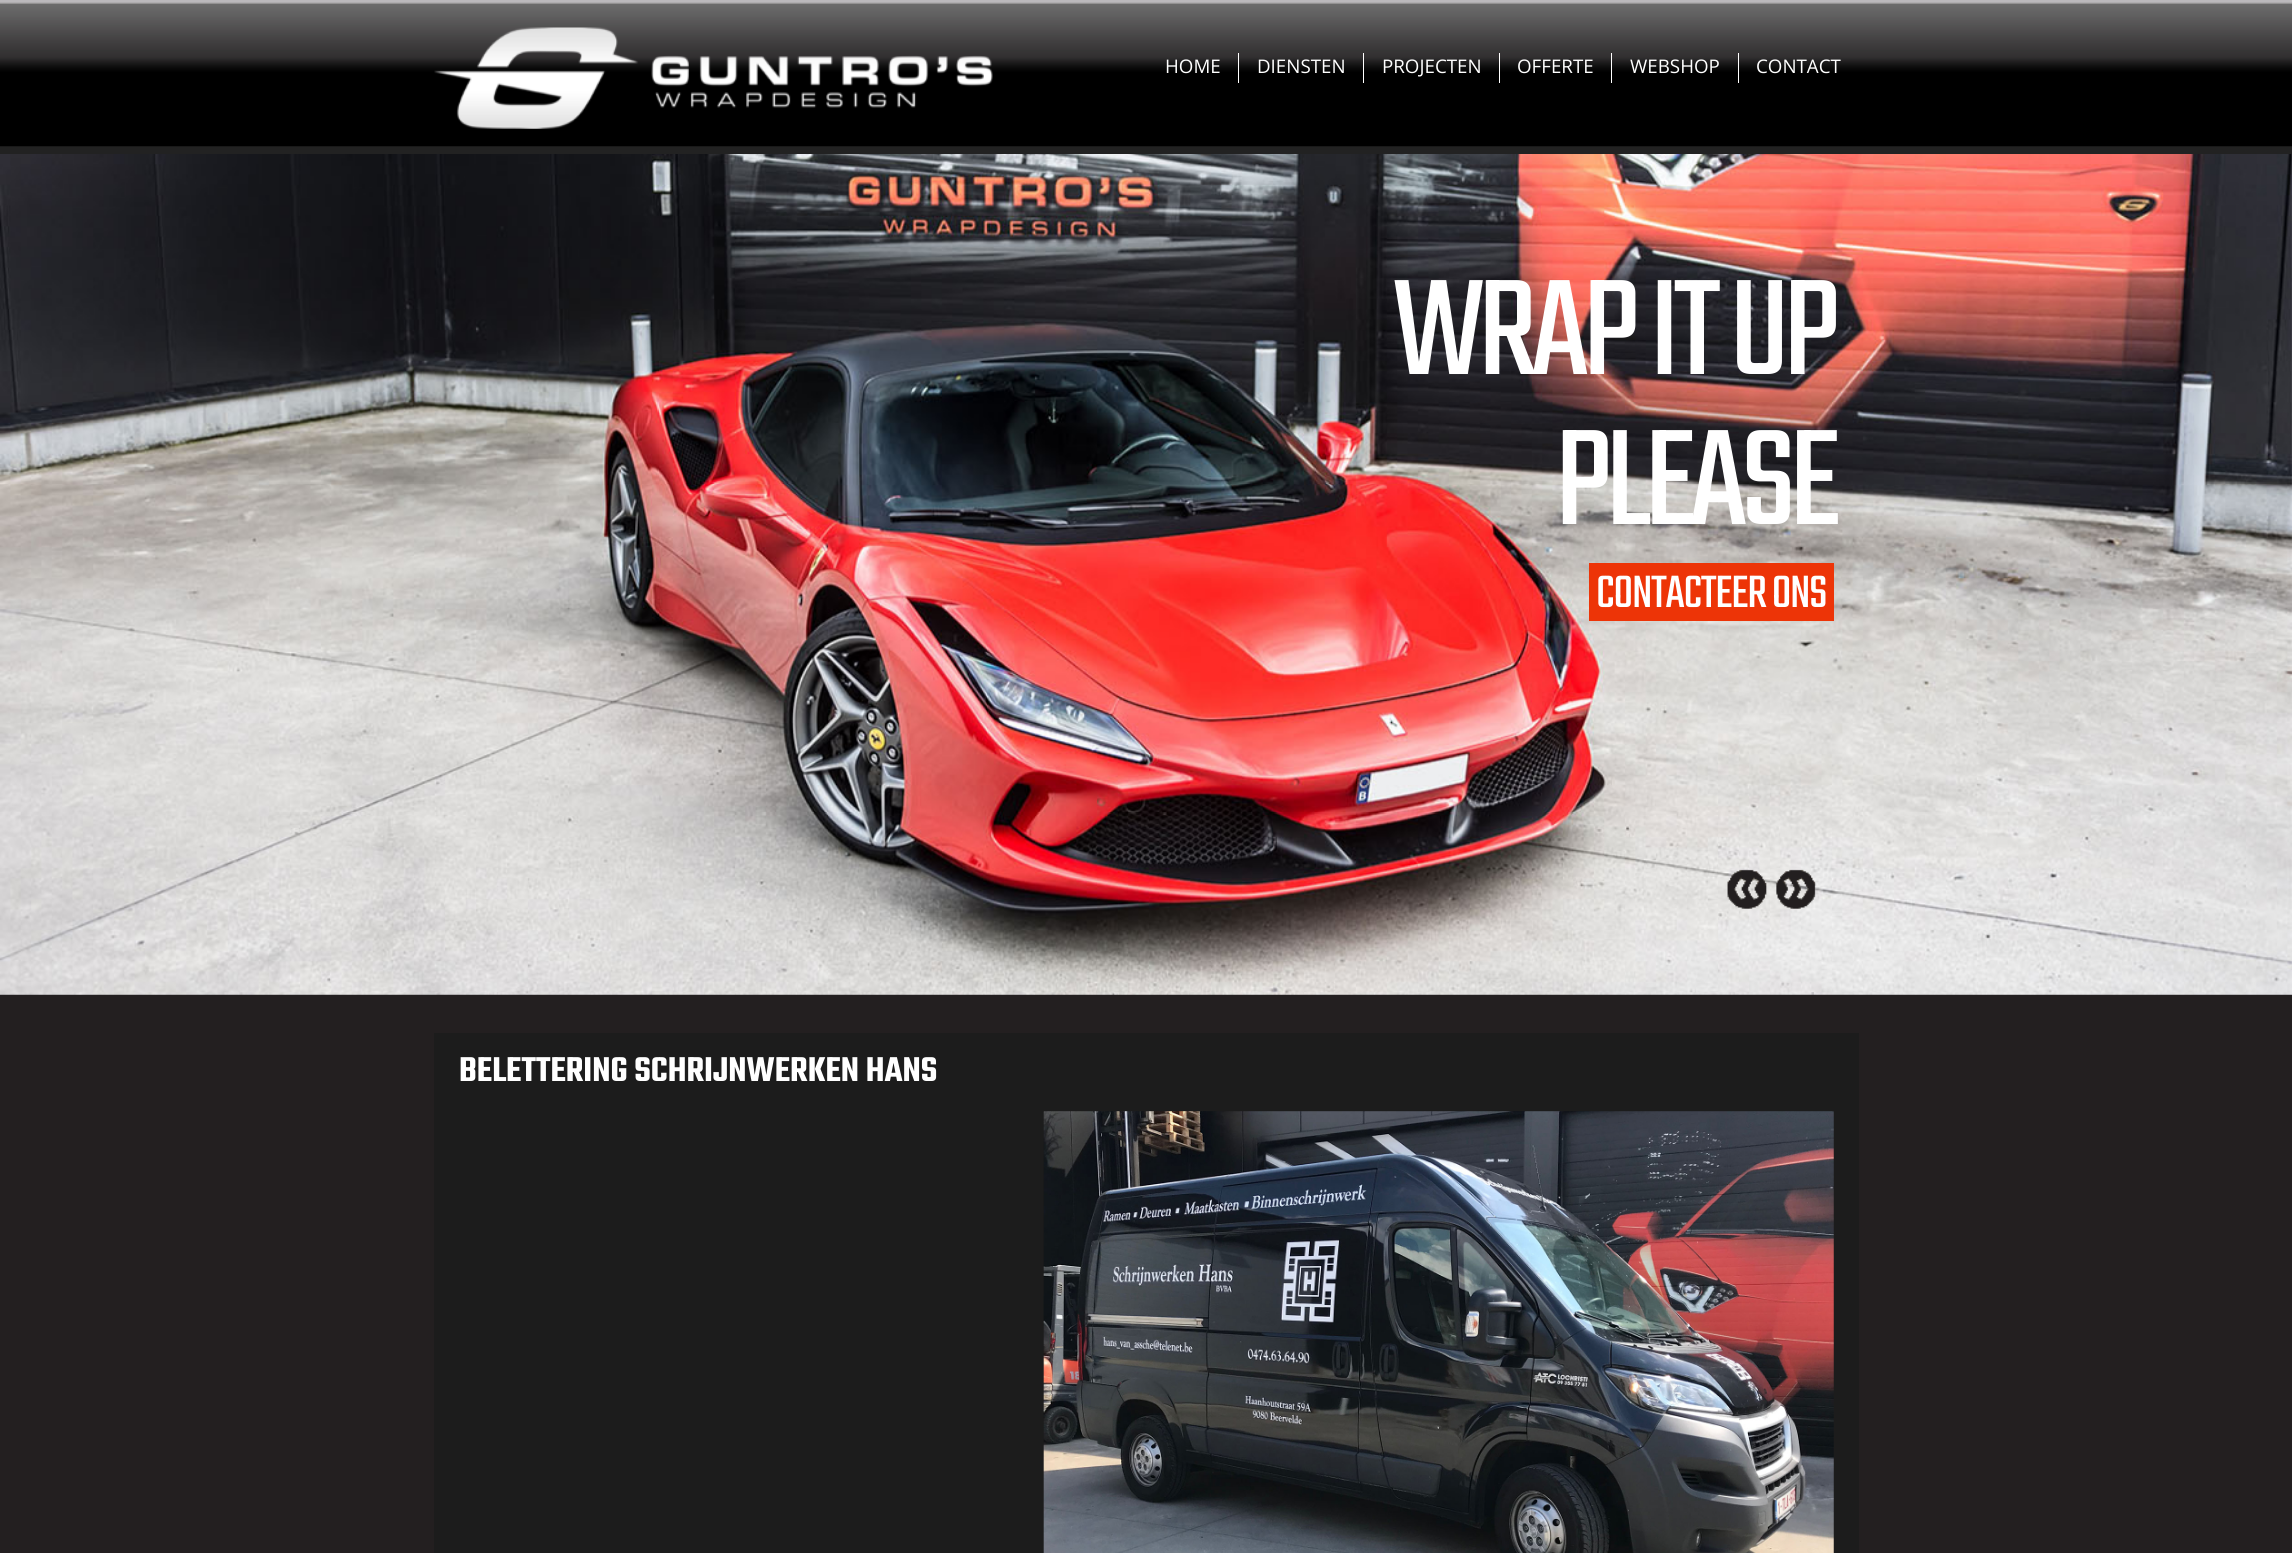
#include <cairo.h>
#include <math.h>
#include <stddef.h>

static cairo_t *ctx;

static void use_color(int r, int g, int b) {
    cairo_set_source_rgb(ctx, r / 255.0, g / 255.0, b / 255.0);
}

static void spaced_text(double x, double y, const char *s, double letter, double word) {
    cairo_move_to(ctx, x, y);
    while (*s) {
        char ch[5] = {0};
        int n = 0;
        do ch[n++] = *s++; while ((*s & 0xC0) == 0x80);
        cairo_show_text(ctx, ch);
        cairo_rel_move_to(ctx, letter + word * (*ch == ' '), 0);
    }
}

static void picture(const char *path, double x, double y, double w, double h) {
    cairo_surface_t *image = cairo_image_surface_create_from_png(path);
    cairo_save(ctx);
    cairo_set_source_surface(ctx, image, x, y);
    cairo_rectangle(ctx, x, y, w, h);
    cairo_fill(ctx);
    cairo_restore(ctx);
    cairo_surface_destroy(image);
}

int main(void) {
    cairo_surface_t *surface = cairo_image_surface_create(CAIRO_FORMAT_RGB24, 2292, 1553);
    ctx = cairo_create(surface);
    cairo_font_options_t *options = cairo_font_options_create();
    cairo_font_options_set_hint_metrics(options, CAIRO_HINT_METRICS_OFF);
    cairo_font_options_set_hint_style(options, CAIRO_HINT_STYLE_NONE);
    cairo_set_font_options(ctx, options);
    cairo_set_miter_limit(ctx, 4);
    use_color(35, 31, 32);
    cairo_paint(ctx);
    use_color(34, 34, 34);
    cairo_rectangle(ctx, 0, 146, 2292, 8);
    cairo_fill(ctx);
    picture("img1.png", 0, 0, 2292, 147);
    picture("img2.png", 434, 27, 559, 102);
    use_color(255, 255, 255);
    cairo_rectangle(ctx, 1238, 53, 1, 30);
    cairo_fill(ctx);
    cairo_select_font_face(ctx, "Open Sans", CAIRO_FONT_SLANT_NORMAL, CAIRO_FONT_WEIGHT_NORMAL);
    cairo_set_font_size(ctx, 18.75);
    cairo_move_to(ctx, 1165, 73);
    cairo_show_text(ctx, "HOME");
    cairo_rectangle(ctx, 1363, 53, 1, 30);
    cairo_fill(ctx);
    cairo_move_to(ctx, 1257, 73);
    cairo_show_text(ctx, "DIENSTEN");
    cairo_rectangle(ctx, 1499, 53, 1, 30);
    cairo_fill(ctx);
    cairo_move_to(ctx, 1382, 73);
    cairo_show_text(ctx, "PROJECTEN");
    cairo_rectangle(ctx, 1611, 53, 1, 30);
    cairo_fill(ctx);
    cairo_move_to(ctx, 1517, 73);
    cairo_show_text(ctx, "OFFERTE");
    cairo_rectangle(ctx, 1738, 53, 1, 30);
    cairo_fill(ctx);
    cairo_move_to(ctx, 1630, 73);
    cairo_show_text(ctx, "WEBSHOP");
    cairo_move_to(ctx, 1756, 73);
    cairo_show_text(ctx, "CONTACT");
    picture("img3.png", 0, 154, 2292, 841);
    cairo_select_font_face(ctx, "Teko", CAIRO_FONT_SLANT_NORMAL, CAIRO_FONT_WEIGHT_NORMAL);
    cairo_set_font_size(ctx, 150);
    spaced_text(1393, 374, "WRAP IT UP", -6.25, 0);
    spaced_text(1555, 524, "PLEASE", -6.25, 0);
    use_color(237, 52, 7);
    cairo_rectangle(ctx, 1589, 563, 245, 58);
    cairo_fill(ctx);
    cairo_set_font_size(ctx, 50);
    use_color(255, 255, 255);
    spaced_text(1596, 607, "CONTACTEER ONS", -1.25, 0);
    picture("img4.png", 1727, 869, 40, 40);
    picture("img5.png", 1776, 869, 40, 40);
    use_color(28, 28, 28);
    cairo_rectangle(ctx, 434, 1033, 1425, 520);
    cairo_fill(ctx);
    cairo_select_font_face(ctx, "Teko SemiBold", CAIRO_FONT_SLANT_NORMAL, CAIRO_FONT_WEIGHT_NORMAL);
    cairo_set_font_size(ctx, 37.5);
    use_color(255, 255, 255);
    cairo_move_to(ctx, 459, 1081);
    cairo_show_text(ctx, "BELETTERING SCHRIJNWERKEN HANS");
    picture("img6.png", 1043, 1111, 791, 442);
    picture("img7.png", 1043, 1111, 790, 442);
    cairo_surface_write_to_png(surface, "result.png");
    cairo_font_options_destroy(options);
    cairo_destroy(ctx);
    cairo_surface_destroy(surface);
    return 0;
}
